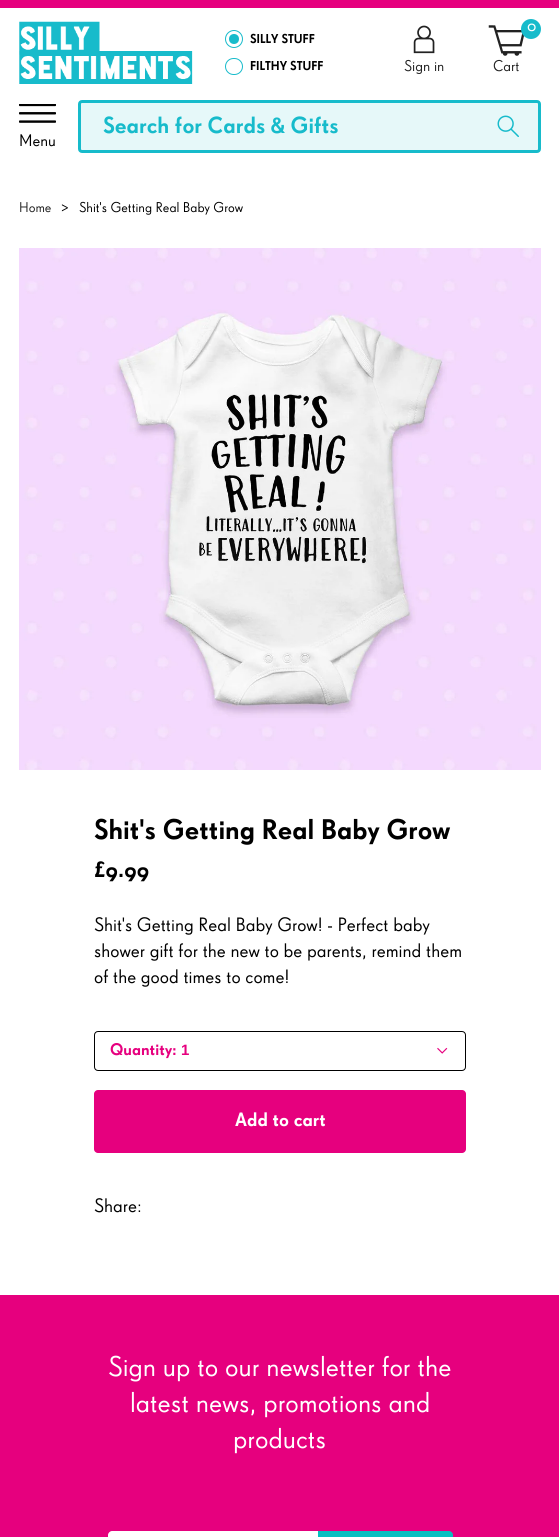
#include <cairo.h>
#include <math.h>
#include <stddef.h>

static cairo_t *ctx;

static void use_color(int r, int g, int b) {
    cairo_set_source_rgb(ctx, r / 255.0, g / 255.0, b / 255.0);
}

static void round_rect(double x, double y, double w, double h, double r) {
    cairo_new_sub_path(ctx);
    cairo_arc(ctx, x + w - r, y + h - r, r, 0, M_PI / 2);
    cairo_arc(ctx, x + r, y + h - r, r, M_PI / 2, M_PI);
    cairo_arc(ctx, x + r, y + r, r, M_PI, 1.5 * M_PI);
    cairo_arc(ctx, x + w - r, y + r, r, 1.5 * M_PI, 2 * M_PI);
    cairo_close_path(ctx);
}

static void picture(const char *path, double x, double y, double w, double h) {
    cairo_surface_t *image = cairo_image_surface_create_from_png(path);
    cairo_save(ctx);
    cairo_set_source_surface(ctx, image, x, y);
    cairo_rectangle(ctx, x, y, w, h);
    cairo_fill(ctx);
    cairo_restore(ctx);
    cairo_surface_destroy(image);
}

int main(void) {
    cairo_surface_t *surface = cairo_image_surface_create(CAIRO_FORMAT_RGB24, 559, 1537);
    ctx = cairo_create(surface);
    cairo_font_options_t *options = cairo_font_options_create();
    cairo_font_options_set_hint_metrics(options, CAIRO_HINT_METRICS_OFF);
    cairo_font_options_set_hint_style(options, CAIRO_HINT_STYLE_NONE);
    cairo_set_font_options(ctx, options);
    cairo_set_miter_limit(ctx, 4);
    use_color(255, 255, 255);
    cairo_paint(ctx);
    use_color(230, 0, 126);
    cairo_rectangle(ctx, 0, 0, 559, 8);
    cairo_fill(ctx);
    picture("img1.png", 19, 21, 174, 63);
    cairo_arc(ctx, 234, 39, 8.5, 0, 2 * M_PI);
    use_color(23, 187, 203);
    cairo_set_line_width(ctx, 1);
    cairo_stroke(ctx);
    cairo_select_font_face(ctx, "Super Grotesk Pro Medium", CAIRO_FONT_SLANT_NORMAL, CAIRO_FONT_WEIGHT_NORMAL);
    cairo_set_font_size(ctx, 12.5);
    use_color(0, 0, 0);
    cairo_move_to(ctx, 250, 43);
    cairo_show_text(ctx, "SILLY STUFF");
    use_color(23, 187, 203);
    cairo_new_path(ctx);
    cairo_arc(ctx, 234, 39, 5, 0, 2 * M_PI);
    cairo_fill(ctx);
    round_rect(225.5, 58.5, 17, 16, 8);
    cairo_stroke(ctx);
    use_color(0, 0, 0);
    cairo_move_to(ctx, 250, 70);
    cairo_show_text(ctx, "FILTHY STUFF");
    picture("img2.png", 413, 25, 22, 29);
    cairo_select_font_face(ctx, "Super Grotesk Pro", CAIRO_FONT_SLANT_NORMAL, CAIRO_FONT_WEIGHT_NORMAL);
    cairo_set_font_size(ctx, 15);
    use_color(34, 34, 34);
    cairo_move_to(ctx, 404, 71);
    cairo_show_text(ctx, "Sign in");
    picture("img3.png", 488, 25, 36, 31);
    use_color(23, 187, 203);
    cairo_arc(ctx, 531, 29, 10, 0, 2 * M_PI);
    cairo_fill(ctx);
    cairo_set_font_size(ctx, 18);
    use_color(255, 255, 255);
    cairo_move_to(ctx, 527, 31);
    cairo_show_text(ctx, "0");
    cairo_set_font_size(ctx, 15);
    use_color(34, 34, 34);
    cairo_move_to(ctx, 493, 71);
    cairo_show_text(ctx, "Cart");
    use_color(230, 248, 249);
    round_rect(79.5, 101.5, 460, 50, 2.5);
    cairo_fill_preserve(ctx);
    use_color(23, 187, 203);
    cairo_set_line_width(ctx, 3);
    cairo_stroke(ctx);
    cairo_select_font_face(ctx, "Super Grotesk Pro Medium", CAIRO_FONT_SLANT_NORMAL, CAIRO_FONT_WEIGHT_NORMAL);
    cairo_set_font_size(ctx, 22.5);
    cairo_move_to(ctx, 103, 133);
    cairo_show_text(ctx, "Search for Cards & Gifts");
    picture("img4.png", 497, 115, 22, 22);
    picture("img5.png", 19, 104, 37, 19);
    cairo_select_font_face(ctx, "Super Grotesk Pro", CAIRO_FONT_SLANT_NORMAL, CAIRO_FONT_WEIGHT_NORMAL);
    cairo_set_font_size(ctx, 16.25);
    use_color(0, 0, 0);
    cairo_move_to(ctx, 19, 146);
    cairo_show_text(ctx, "Menu");
    cairo_set_font_size(ctx, 13.75);
    use_color(34, 34, 34);
    cairo_move_to(ctx, 19, 212);
    cairo_show_text(ctx, "Home");
    use_color(0, 0, 0);
    cairo_move_to(ctx, 61, 212);
    cairo_show_text(ctx, ">");
    cairo_move_to(ctx, 79, 212);
    cairo_show_text(ctx, "Shit's Getting Real Baby Grow");
    picture("img6.png", 19, 248, 522, 522);
    cairo_select_font_face(ctx, "Super Grotesk Pro Medium", CAIRO_FONT_SLANT_NORMAL, CAIRO_FONT_WEIGHT_NORMAL);
    cairo_set_font_size(ctx, 27.5);
    cairo_move_to(ctx, 94, 839);
    cairo_show_text(ctx, "Shit's Getting Real Baby Grow");
    cairo_set_font_size(ctx, 22.5);
    cairo_move_to(ctx, 94, 877);
    cairo_show_text(ctx, "£9.99");
    cairo_select_font_face(ctx, "Super Grotesk Pro", CAIRO_FONT_SLANT_NORMAL, CAIRO_FONT_WEIGHT_NORMAL);
    cairo_set_font_size(ctx, 18.75);
    cairo_move_to(ctx, 94, 931);
    cairo_show_text(ctx, "Shit's Getting Real Baby Grow! - Perfect baby");
    cairo_move_to(ctx, 94, 957);
    cairo_show_text(ctx, "shower gift for the new to be parents, remind them");
    cairo_move_to(ctx, 94, 983);
    cairo_show_text(ctx, "of the good times to come!");
    round_rect(94.5, 1031.5, 371, 39, 3.5);
    cairo_set_line_width(ctx, 1);
    cairo_stroke(ctx);
    cairo_select_font_face(ctx, "Super Grotesk Pro Medium", CAIRO_FONT_SLANT_NORMAL, CAIRO_FONT_WEIGHT_NORMAL);
    cairo_set_font_size(ctx, 16.25);
    use_color(230, 0, 126);
    cairo_move_to(ctx, 110, 1055);
    cairo_show_text(ctx, "Quantity:");
    cairo_select_font_face(ctx, "Liberation Sans", CAIRO_FONT_SLANT_NORMAL, CAIRO_FONT_WEIGHT_BOLD);
    cairo_set_font_size(ctx, 15);
    cairo_move_to(ctx, 181, 1055);
    cairo_show_text(ctx, "1");
    picture("img7.png", 437, 1047, 11, 7);
    round_rect(94, 1090, 372, 63, 4);
    cairo_fill(ctx);
    cairo_select_font_face(ctx, "Super Grotesk Pro Medium", CAIRO_FONT_SLANT_NORMAL, CAIRO_FONT_WEIGHT_NORMAL);
    cairo_set_font_size(ctx, 18.75);
    use_color(255, 255, 255);
    cairo_move_to(ctx, 235, 1126);
    cairo_show_text(ctx, "Add to cart");
    cairo_select_font_face(ctx, "Super Grotesk Pro", CAIRO_FONT_SLANT_NORMAL, CAIRO_FONT_WEIGHT_NORMAL);
    use_color(0, 0, 0);
    cairo_move_to(ctx, 94, 1212);
    cairo_show_text(ctx, "Share:");
    use_color(230, 0, 126);
    cairo_rectangle(ctx, 0, 1295, 559, 242);
    cairo_fill(ctx);
    cairo_set_font_size(ctx, 27.5);
    use_color(255, 255, 255);
    cairo_move_to(ctx, 108, 1376);
    cairo_show_text(ctx, "Sign up to our newsletter for the");
    cairo_move_to(ctx, 130, 1412);
    cairo_show_text(ctx, "latest news, promotions and");
    cairo_move_to(ctx, 233, 1448);
    cairo_show_text(ctx, "products");
    cairo_new_path(ctx);
    cairo_move_to(ctx, 112, 1531);
    cairo_line_to(ctx, 318, 1531);
    cairo_line_to(ctx, 318, 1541);
    cairo_line_to(ctx, 112, 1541);
    cairo_curve_to(ctx, 110, 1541, 108, 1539, 108, 1537);
    cairo_line_to(ctx, 108, 1535);
    cairo_curve_to(ctx, 108, 1533, 110, 1531, 112, 1531);
    cairo_close_path(ctx);
    cairo_fill(ctx);
    use_color(6, 191, 193);
    cairo_new_path(ctx);
    cairo_move_to(ctx, 318, 1531);
    cairo_line_to(ctx, 449, 1531);
    cairo_curve_to(ctx, 451, 1531, 453, 1533, 453, 1535);
    cairo_line_to(ctx, 453, 1537);
    cairo_curve_to(ctx, 453, 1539, 451, 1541, 449, 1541);
    cairo_line_to(ctx, 318, 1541);
    cairo_close_path(ctx);
    cairo_fill(ctx);
    cairo_surface_write_to_png(surface, "result.png");
    cairo_font_options_destroy(options);
    cairo_destroy(ctx);
    cairo_surface_destroy(surface);
    return 0;
}
